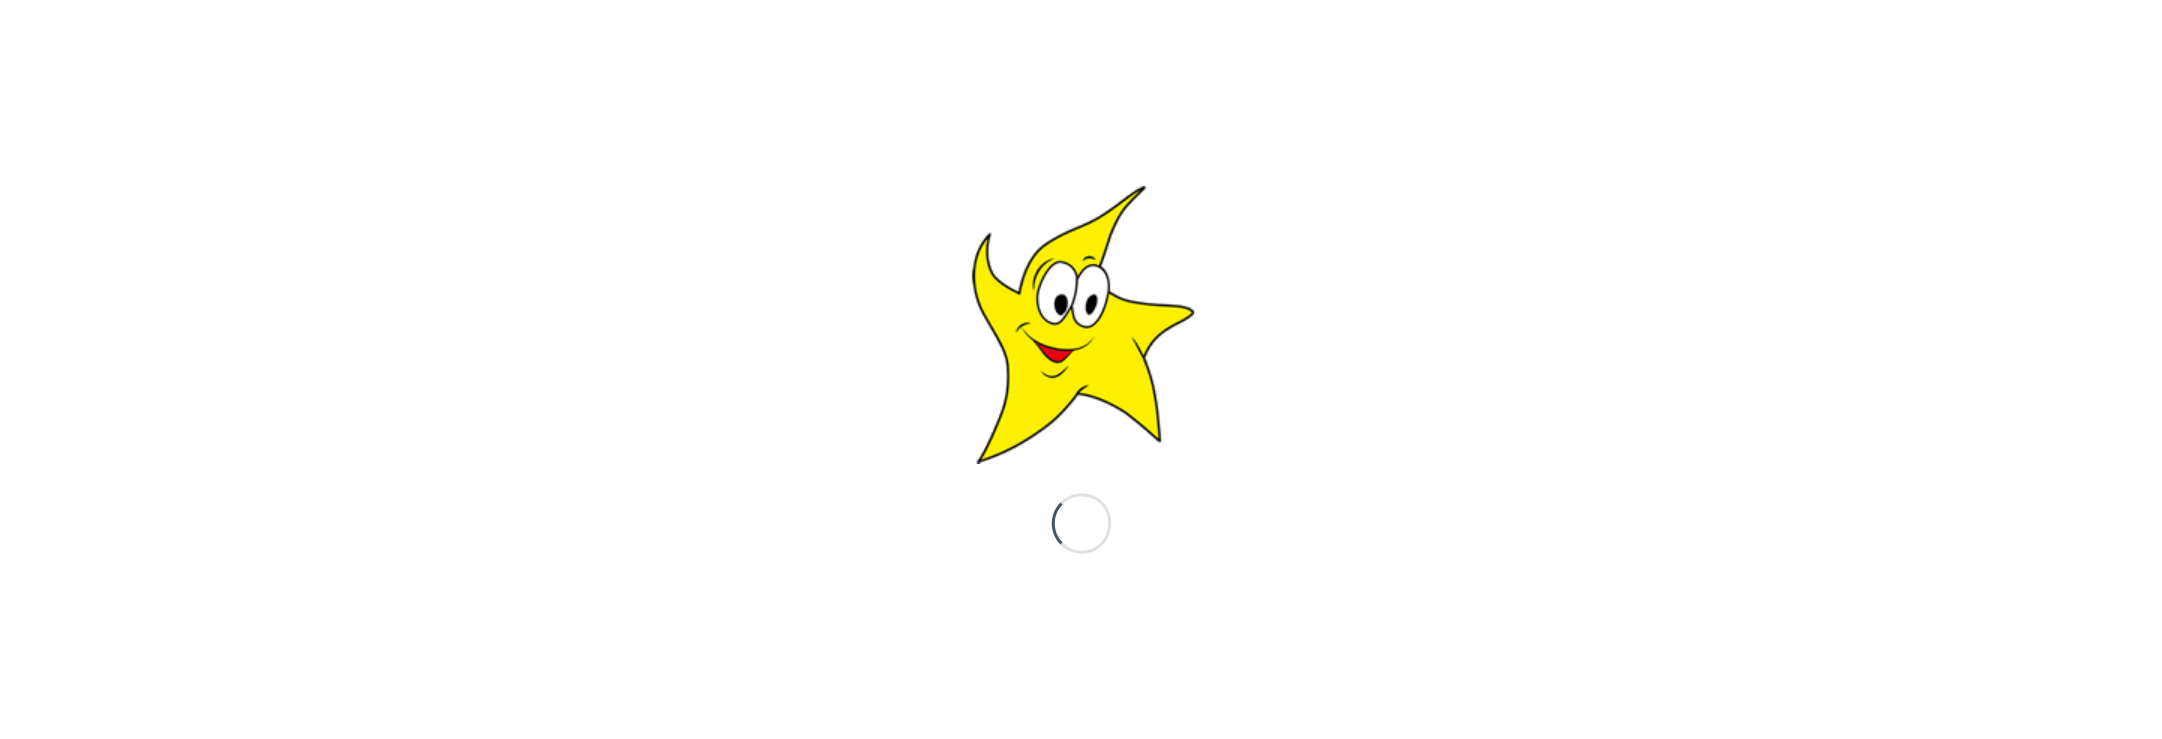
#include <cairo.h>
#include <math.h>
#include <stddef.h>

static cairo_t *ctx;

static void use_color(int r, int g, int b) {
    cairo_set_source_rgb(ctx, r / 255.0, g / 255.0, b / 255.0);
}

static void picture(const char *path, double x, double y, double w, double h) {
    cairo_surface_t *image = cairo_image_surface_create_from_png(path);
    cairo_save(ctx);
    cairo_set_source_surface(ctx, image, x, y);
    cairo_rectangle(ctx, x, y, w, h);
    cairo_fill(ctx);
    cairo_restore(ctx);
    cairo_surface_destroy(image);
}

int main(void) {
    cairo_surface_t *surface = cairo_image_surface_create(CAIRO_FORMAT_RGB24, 2162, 739);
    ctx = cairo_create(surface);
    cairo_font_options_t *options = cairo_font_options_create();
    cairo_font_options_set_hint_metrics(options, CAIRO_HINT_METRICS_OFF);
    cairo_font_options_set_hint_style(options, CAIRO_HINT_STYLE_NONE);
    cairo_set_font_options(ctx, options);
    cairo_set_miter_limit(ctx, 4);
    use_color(255, 255, 255);
    cairo_paint(ctx);
    picture("img1.png", 971, 186, 224, 278);
    cairo_new_path(ctx);
    cairo_move_to(ctx, 1061.5, 503.5);
    cairo_curve_to(ctx, 1068, 496.5, 1078, 493.5, 1087, 495.5);
    cairo_curve_to(ctx, 1120.5, 502, 1115.5, 552, 1081.5, 552);
    cairo_curve_to(ctx, 1074, 552, 1066.5, 549, 1061.5, 543.5);
    use_color(225, 225, 225);
    cairo_set_line_width(ctx, 3);
    cairo_stroke(ctx);
    cairo_new_path(ctx);
    cairo_move_to(ctx, 1061.5, 543.5);
    cairo_curve_to(ctx, 1050.5, 532.5, 1050.5, 514.5, 1061.5, 503.5);
    use_color(67, 87, 97);
    cairo_stroke(ctx);
    cairo_surface_write_to_png(surface, "result.png");
    cairo_font_options_destroy(options);
    cairo_destroy(ctx);
    cairo_surface_destroy(surface);
    return 0;
}
